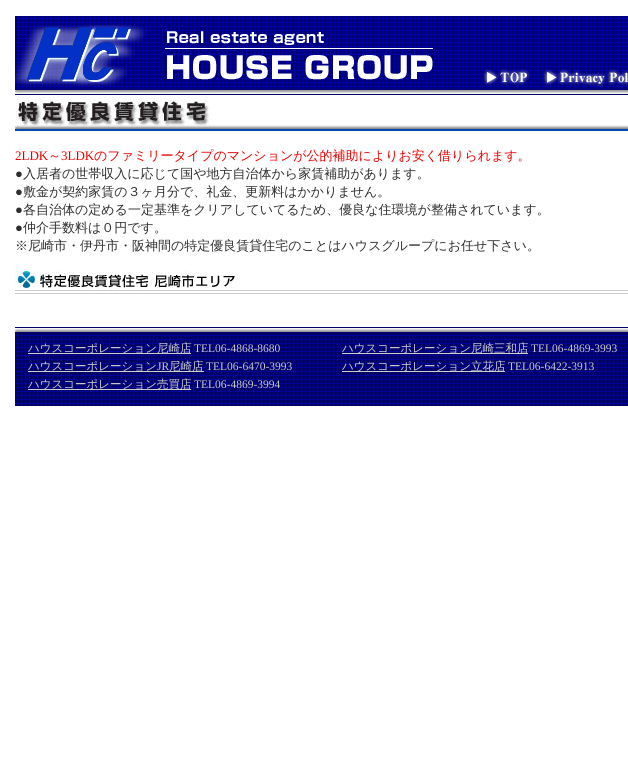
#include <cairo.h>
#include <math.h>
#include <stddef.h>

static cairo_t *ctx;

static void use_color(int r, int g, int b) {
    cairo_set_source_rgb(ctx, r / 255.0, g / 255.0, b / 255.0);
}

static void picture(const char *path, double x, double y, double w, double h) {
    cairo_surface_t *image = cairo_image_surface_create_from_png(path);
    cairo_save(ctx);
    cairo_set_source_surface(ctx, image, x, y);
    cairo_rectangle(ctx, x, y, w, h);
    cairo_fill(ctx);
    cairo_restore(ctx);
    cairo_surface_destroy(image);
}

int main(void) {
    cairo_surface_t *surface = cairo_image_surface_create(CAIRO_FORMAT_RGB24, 628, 764);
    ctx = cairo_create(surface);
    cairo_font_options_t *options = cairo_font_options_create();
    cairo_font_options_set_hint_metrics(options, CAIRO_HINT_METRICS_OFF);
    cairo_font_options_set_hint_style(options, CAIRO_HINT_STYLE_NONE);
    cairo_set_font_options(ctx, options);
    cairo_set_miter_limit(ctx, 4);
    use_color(255, 255, 255);
    cairo_paint(ctx);
    picture("img1.png", 15, 16, 134, 79);
    picture("img2.png", 149, 16, 325, 79);
    picture("img3.png", 474, 16, 154, 79);
    picture("img4.png", 15, 96, 613, 35);
    cairo_select_font_face(ctx, "Liberation Serif", CAIRO_FONT_SLANT_NORMAL, CAIRO_FONT_WEIGHT_NORMAL);
    cairo_set_font_size(ctx, 13);
    use_color(238, 0, 0);
    cairo_move_to(ctx, 15, 160);
    cairo_show_text(ctx, "2LDK");
    cairo_select_font_face(ctx, "WenQuanYi Zen Hei Medium", CAIRO_FONT_SLANT_NORMAL, CAIRO_FONT_WEIGHT_NORMAL);
    cairo_move_to(ctx, 48, 160);
    cairo_show_text(ctx, "～");
    cairo_select_font_face(ctx, "Liberation Serif", CAIRO_FONT_SLANT_NORMAL, CAIRO_FONT_WEIGHT_NORMAL);
    cairo_move_to(ctx, 61, 160);
    cairo_show_text(ctx, "3LDK");
    cairo_select_font_face(ctx, "WenQuanYi Zen Hei Medium", CAIRO_FONT_SLANT_NORMAL, CAIRO_FONT_WEIGHT_NORMAL);
    cairo_move_to(ctx, 94, 160);
    cairo_show_text(ctx, "のファミリータイプのマンションが公的補助によりお安く借りられます。");
    cairo_select_font_face(ctx, "Liberation Serif", CAIRO_FONT_SLANT_NORMAL, CAIRO_FONT_WEIGHT_NORMAL);
    use_color(46, 46, 46);
    cairo_move_to(ctx, 15, 178);
    cairo_show_text(ctx, "●");
    cairo_select_font_face(ctx, "WenQuanYi Zen Hei Medium", CAIRO_FONT_SLANT_NORMAL, CAIRO_FONT_WEIGHT_NORMAL);
    cairo_move_to(ctx, 23, 178);
    cairo_show_text(ctx, "入居者の世帯収入に応じて国や地方自治体から家賃補助があります。");
    cairo_select_font_face(ctx, "Liberation Serif", CAIRO_FONT_SLANT_NORMAL, CAIRO_FONT_WEIGHT_NORMAL);
    cairo_move_to(ctx, 15, 196);
    cairo_show_text(ctx, "●");
    cairo_select_font_face(ctx, "WenQuanYi Zen Hei Medium", CAIRO_FONT_SLANT_NORMAL, CAIRO_FONT_WEIGHT_NORMAL);
    cairo_move_to(ctx, 23, 196);
    cairo_show_text(ctx, "敷金が契約家賃の３ヶ月分で、礼金、更新料はかかりません。");
    cairo_select_font_face(ctx, "Liberation Serif", CAIRO_FONT_SLANT_NORMAL, CAIRO_FONT_WEIGHT_NORMAL);
    cairo_move_to(ctx, 15, 214);
    cairo_show_text(ctx, "●");
    cairo_select_font_face(ctx, "WenQuanYi Zen Hei Medium", CAIRO_FONT_SLANT_NORMAL, CAIRO_FONT_WEIGHT_NORMAL);
    cairo_move_to(ctx, 23, 214);
    cairo_show_text(ctx, "各自治体の定める一定基準をクリアしていてるため、優良な住環境が整備されています。");
    cairo_select_font_face(ctx, "Liberation Serif", CAIRO_FONT_SLANT_NORMAL, CAIRO_FONT_WEIGHT_NORMAL);
    cairo_move_to(ctx, 15, 232);
    cairo_show_text(ctx, "●");
    cairo_select_font_face(ctx, "WenQuanYi Zen Hei Medium", CAIRO_FONT_SLANT_NORMAL, CAIRO_FONT_WEIGHT_NORMAL);
    cairo_move_to(ctx, 23, 232);
    cairo_show_text(ctx, "仲介手数料は０円です。");
    cairo_move_to(ctx, 15, 250);
    cairo_show_text(ctx, "※尼崎市・伊丹市・阪神間の特定優良賃貸住宅のことはハウスグループにお任せ下さい。");
    picture("img5.png", 15, 271, 613, 23);
    picture("img6.png", 15, 327, 613, 79);
    use_color(204, 204, 204);
    cairo_rectangle(ctx, 28, 353, 163, 1);
    cairo_fill(ctx);
    cairo_set_font_size(ctx, 11.5);
    cairo_move_to(ctx, 28, 352);
    cairo_show_text(ctx, "ハウスコーポレーション尼崎店");
    cairo_select_font_face(ctx, "Liberation Serif", CAIRO_FONT_SLANT_NORMAL, CAIRO_FONT_WEIGHT_NORMAL);
    cairo_move_to(ctx, 194, 352);
    cairo_show_text(ctx, "TEL06-4868-8680");
    cairo_rectangle(ctx, 342, 353, 186, 1);
    cairo_fill(ctx);
    cairo_select_font_face(ctx, "WenQuanYi Zen Hei Medium", CAIRO_FONT_SLANT_NORMAL, CAIRO_FONT_WEIGHT_NORMAL);
    cairo_move_to(ctx, 342, 352);
    cairo_show_text(ctx, "ハウスコーポレーション尼崎三和店");
    cairo_select_font_face(ctx, "Liberation Serif", CAIRO_FONT_SLANT_NORMAL, CAIRO_FONT_WEIGHT_NORMAL);
    cairo_move_to(ctx, 531, 352);
    cairo_show_text(ctx, "TEL06-4869-3993");
    cairo_rectangle(ctx, 28, 371, 176, 1);
    cairo_fill(ctx);
    cairo_select_font_face(ctx, "WenQuanYi Zen Hei Medium", CAIRO_FONT_SLANT_NORMAL, CAIRO_FONT_WEIGHT_NORMAL);
    cairo_move_to(ctx, 28, 370);
    cairo_show_text(ctx, "ハウスコーポレーション");
    cairo_select_font_face(ctx, "Liberation Serif", CAIRO_FONT_SLANT_NORMAL, CAIRO_FONT_WEIGHT_NORMAL);
    cairo_move_to(ctx, 157, 370);
    cairo_show_text(ctx, "JR");
    cairo_select_font_face(ctx, "WenQuanYi Zen Hei Medium", CAIRO_FONT_SLANT_NORMAL, CAIRO_FONT_WEIGHT_NORMAL);
    cairo_move_to(ctx, 169, 370);
    cairo_show_text(ctx, "尼崎店");
    cairo_select_font_face(ctx, "Liberation Serif", CAIRO_FONT_SLANT_NORMAL, CAIRO_FONT_WEIGHT_NORMAL);
    cairo_move_to(ctx, 206, 370);
    cairo_show_text(ctx, "TEL06-6470-3993");
    cairo_rectangle(ctx, 342, 371, 163, 1);
    cairo_fill(ctx);
    cairo_select_font_face(ctx, "WenQuanYi Zen Hei Medium", CAIRO_FONT_SLANT_NORMAL, CAIRO_FONT_WEIGHT_NORMAL);
    cairo_move_to(ctx, 342, 370);
    cairo_show_text(ctx, "ハウスコーポレーション立花店");
    cairo_select_font_face(ctx, "Liberation Serif", CAIRO_FONT_SLANT_NORMAL, CAIRO_FONT_WEIGHT_NORMAL);
    cairo_move_to(ctx, 508, 370);
    cairo_show_text(ctx, "TEL06-6422-3913");
    cairo_rectangle(ctx, 28, 389, 163, 1);
    cairo_fill(ctx);
    cairo_select_font_face(ctx, "WenQuanYi Zen Hei Medium", CAIRO_FONT_SLANT_NORMAL, CAIRO_FONT_WEIGHT_NORMAL);
    cairo_move_to(ctx, 28, 388);
    cairo_show_text(ctx, "ハウスコーポレーション売買店");
    cairo_select_font_face(ctx, "Liberation Serif", CAIRO_FONT_SLANT_NORMAL, CAIRO_FONT_WEIGHT_NORMAL);
    cairo_move_to(ctx, 194, 388);
    cairo_show_text(ctx, "TEL06-4869-3994");
    cairo_surface_write_to_png(surface, "result.png");
    cairo_font_options_destroy(options);
    cairo_destroy(ctx);
    cairo_surface_destroy(surface);
    return 0;
}
